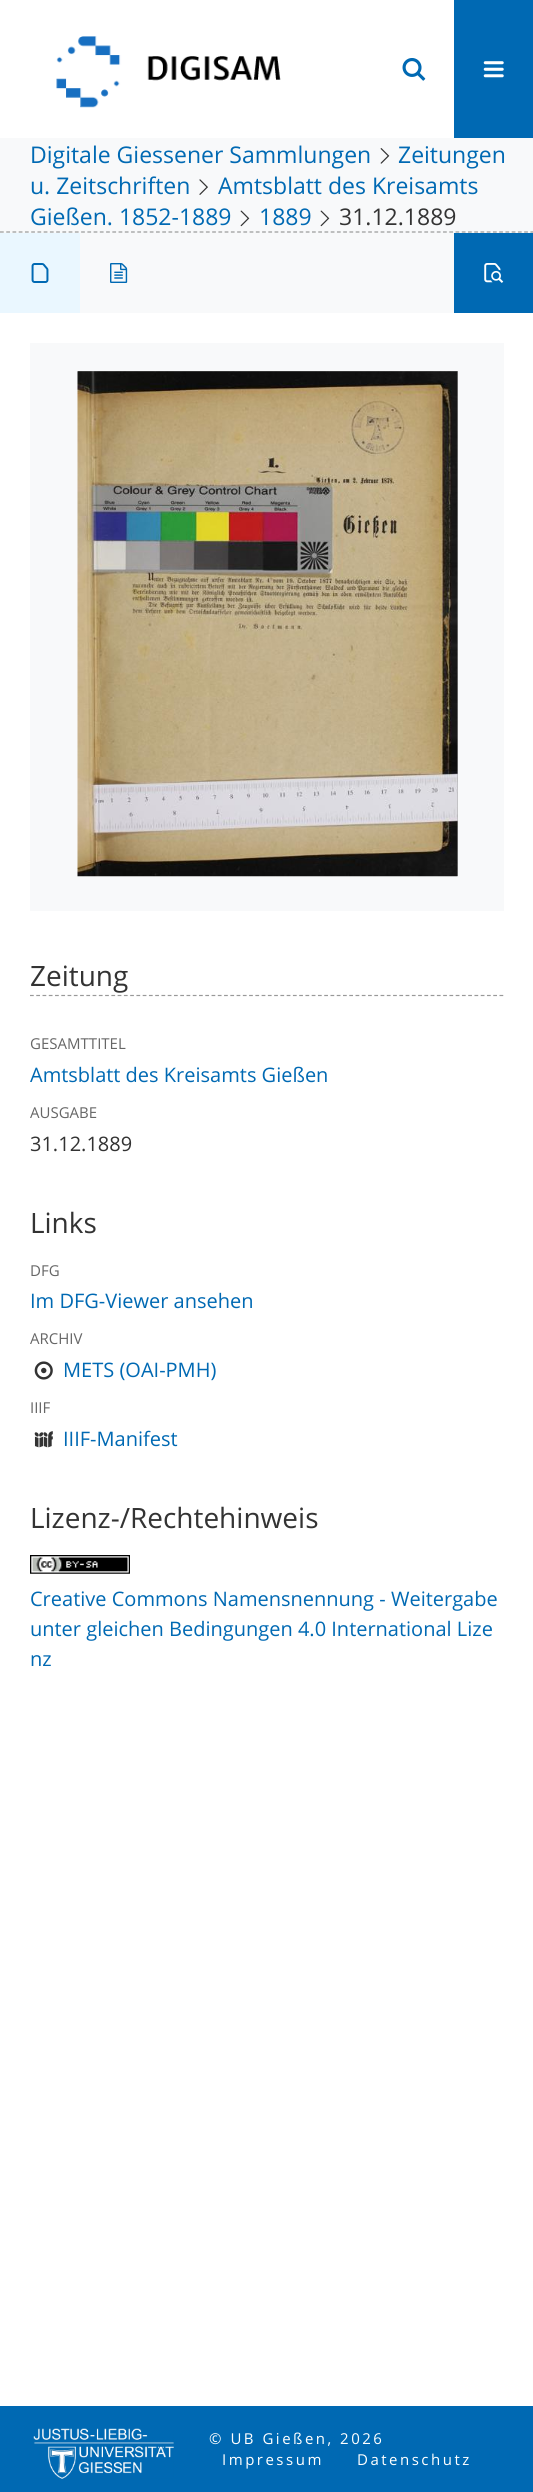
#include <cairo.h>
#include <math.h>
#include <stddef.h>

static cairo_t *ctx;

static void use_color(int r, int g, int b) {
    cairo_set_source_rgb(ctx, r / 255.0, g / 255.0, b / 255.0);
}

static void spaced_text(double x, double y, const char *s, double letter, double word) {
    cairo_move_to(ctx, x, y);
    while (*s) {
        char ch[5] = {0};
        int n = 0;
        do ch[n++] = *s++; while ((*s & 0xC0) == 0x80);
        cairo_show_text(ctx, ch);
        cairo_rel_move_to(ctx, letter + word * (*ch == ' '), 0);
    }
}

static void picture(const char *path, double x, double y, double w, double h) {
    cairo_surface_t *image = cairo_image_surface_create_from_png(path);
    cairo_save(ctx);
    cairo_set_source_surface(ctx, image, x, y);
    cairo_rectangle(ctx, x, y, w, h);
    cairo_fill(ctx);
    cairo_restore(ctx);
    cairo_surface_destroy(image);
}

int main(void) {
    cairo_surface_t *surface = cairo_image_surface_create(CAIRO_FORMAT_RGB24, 533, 2492);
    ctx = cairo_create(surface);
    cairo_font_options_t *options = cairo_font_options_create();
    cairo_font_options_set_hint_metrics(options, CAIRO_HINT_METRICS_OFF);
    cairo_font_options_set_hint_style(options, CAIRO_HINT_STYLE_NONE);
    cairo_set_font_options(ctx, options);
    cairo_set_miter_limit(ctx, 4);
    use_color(255, 255, 255);
    cairo_paint(ctx);
    picture("img1.png", 56, 36, 225, 72);
    picture("img2.png", 402, 58, 24, 23);
    use_color(0, 105, 179);
    cairo_rectangle(ctx, 454, 0, 79, 138);
    cairo_fill(ctx);
    picture("img3.png", 483, 61, 21, 17);
    use_color(248, 249, 250);
    cairo_rectangle(ctx, 0, 138, 533, 95);
    cairo_fill(ctx);
    cairo_new_path(ctx);
    cairo_move_to(ctx, 0, 232);
    cairo_line_to(ctx, 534, 232);
    use_color(153, 153, 153);
    cairo_set_line_width(ctx, 1.2);
    cairo_set_dash(ctx, (double[]){3.75, 2.49}, 2, 0);
    cairo_stroke(ctx);
    cairo_select_font_face(ctx, "Open Sans", CAIRO_FONT_SLANT_NORMAL, CAIRO_FONT_WEIGHT_NORMAL);
    cairo_set_font_size(ctx, 23);
    use_color(0, 105, 179);
    cairo_move_to(ctx, 30, 163);
    cairo_show_text(ctx, "Digitale Giessener Sammlungen");
    picture("img4.png", 380, 148, 10, 16);
    cairo_move_to(ctx, 398, 163);
    cairo_show_text(ctx, "Zeitungen");
    cairo_move_to(ctx, 30, 194);
    cairo_show_text(ctx, "u. Zeitschriften");
    picture("img5.png", 199, 179, 9, 16);
    cairo_move_to(ctx, 218, 194);
    cairo_show_text(ctx, "Amtsblatt des Kreisamts");
    cairo_move_to(ctx, 30, 225);
    cairo_show_text(ctx, "Gießen. 1852-1889");
    picture("img6.png", 240, 210, 10, 17);
    cairo_move_to(ctx, 259, 225);
    cairo_show_text(ctx, "1889");
    picture("img6.png", 320, 210, 10, 17);
    use_color(51, 51, 51);
    cairo_move_to(ctx, 339, 225);
    cairo_show_text(ctx, "31.12.1889");
    use_color(248, 249, 250);
    cairo_rectangle(ctx, 80, 233, 374, 80);
    cairo_fill(ctx);
    use_color(234, 247, 255);
    cairo_rectangle(ctx, 0, 233, 80, 80);
    cairo_fill(ctx);
    picture("img7.png", 31, 263, 18, 20);
    picture("img8.png", 110, 263, 18, 20);
    use_color(0, 105, 179);
    cairo_rectangle(ctx, 454, 233, 79, 80);
    cairo_fill(ctx);
    picture("img9.png", 484, 263, 20, 20);
    use_color(248, 249, 250);
    cairo_rectangle(ctx, 30, 343, 474, 568);
    cairo_fill(ctx);
    use_color(170, 170, 170);
    cairo_rectangle(ctx, 78, 371, 380, 505);
    cairo_fill(ctx);
    picture("img10.png", 77, 371, 381, 506);
    cairo_new_path(ctx);
    cairo_move_to(ctx, 30, 995.5);
    cairo_line_to(ctx, 504, 995.5);
    use_color(153, 153, 153);
    cairo_set_dash(ctx, (double[]){3.75, 2.51}, 2, 0);
    cairo_stroke(ctx);
    cairo_set_font_size(ctx, 28);
    use_color(51, 51, 51);
    cairo_move_to(ctx, 30, 986);
    cairo_show_text(ctx, "Zeitung");
    cairo_set_font_size(ctx, 15);
    use_color(102, 102, 102);
    cairo_move_to(ctx, 30, 1049);
    cairo_show_text(ctx, "GESAMTTITEL");
    cairo_set_font_size(ctx, 20);
    use_color(0, 105, 179);
    cairo_move_to(ctx, 30, 1082);
    cairo_show_text(ctx, "Amtsblatt des Kreisamts Gießen");
    cairo_set_font_size(ctx, 15);
    use_color(102, 102, 102);
    cairo_move_to(ctx, 30, 1118);
    cairo_show_text(ctx, "AUSGABE");
    cairo_set_font_size(ctx, 20);
    use_color(51, 51, 51);
    cairo_move_to(ctx, 30, 1151);
    cairo_show_text(ctx, "31.12.1889");
    cairo_set_font_size(ctx, 28);
    cairo_move_to(ctx, 30, 1233);
    cairo_show_text(ctx, "Links");
    cairo_set_font_size(ctx, 15);
    use_color(102, 102, 102);
    cairo_move_to(ctx, 30, 1276);
    cairo_show_text(ctx, "DFG");
    cairo_set_font_size(ctx, 20);
    use_color(0, 105, 179);
    cairo_move_to(ctx, 30, 1308);
    cairo_show_text(ctx, "Im DFG-Viewer ansehen");
    cairo_set_font_size(ctx, 15);
    use_color(102, 102, 102);
    cairo_move_to(ctx, 30, 1344);
    cairo_show_text(ctx, "ARCHIV");
    picture("img11.png", 34, 1361, 19, 19);
    cairo_set_font_size(ctx, 20);
    use_color(0, 105, 179);
    cairo_move_to(ctx, 63, 1377);
    cairo_show_text(ctx, "METS (OAI-PMH)");
    cairo_set_font_size(ctx, 15);
    use_color(102, 102, 102);
    cairo_move_to(ctx, 30, 1413);
    cairo_show_text(ctx, "IIIF");
    picture("img12.png", 34, 1431, 19, 17);
    cairo_set_font_size(ctx, 20);
    use_color(0, 105, 179);
    cairo_move_to(ctx, 63, 1446);
    cairo_show_text(ctx, "IIIF-Manifest");
    cairo_set_font_size(ctx, 28);
    use_color(51, 51, 51);
    cairo_move_to(ctx, 30, 1528);
    cairo_show_text(ctx, "Lizenz-/Rechtehinweis");
    picture("img13.png", 30, 1555, 100, 19);
    cairo_set_font_size(ctx, 20);
    use_color(0, 105, 179);
    cairo_move_to(ctx, 30, 1606);
    cairo_show_text(ctx, "Creative Commons Namensnennung - Weitergabe");
    cairo_move_to(ctx, 30, 1636);
    cairo_show_text(ctx, "unter gleichen Bedingungen 4.0 International Lize");
    cairo_move_to(ctx, 30, 1666);
    cairo_show_text(ctx, "nz");
    cairo_rectangle(ctx, 0, 2406, 533, 86);
    cairo_fill(ctx);
    picture("img14.png", 33, 2428, 141, 51);
    cairo_set_font_size(ctx, 15);
    use_color(255, 255, 255);
    spaced_text(209, 2444, "© UB Gießen, 2026", 2.5, 0);
    spaced_text(222, 2465, "Impressum", 2.5, 0);
    spaced_text(357, 2465, "Datenschutz", 2.5, 0);
    cairo_surface_write_to_png(surface, "result.png");
    cairo_font_options_destroy(options);
    cairo_destroy(ctx);
    cairo_surface_destroy(surface);
    return 0;
}
